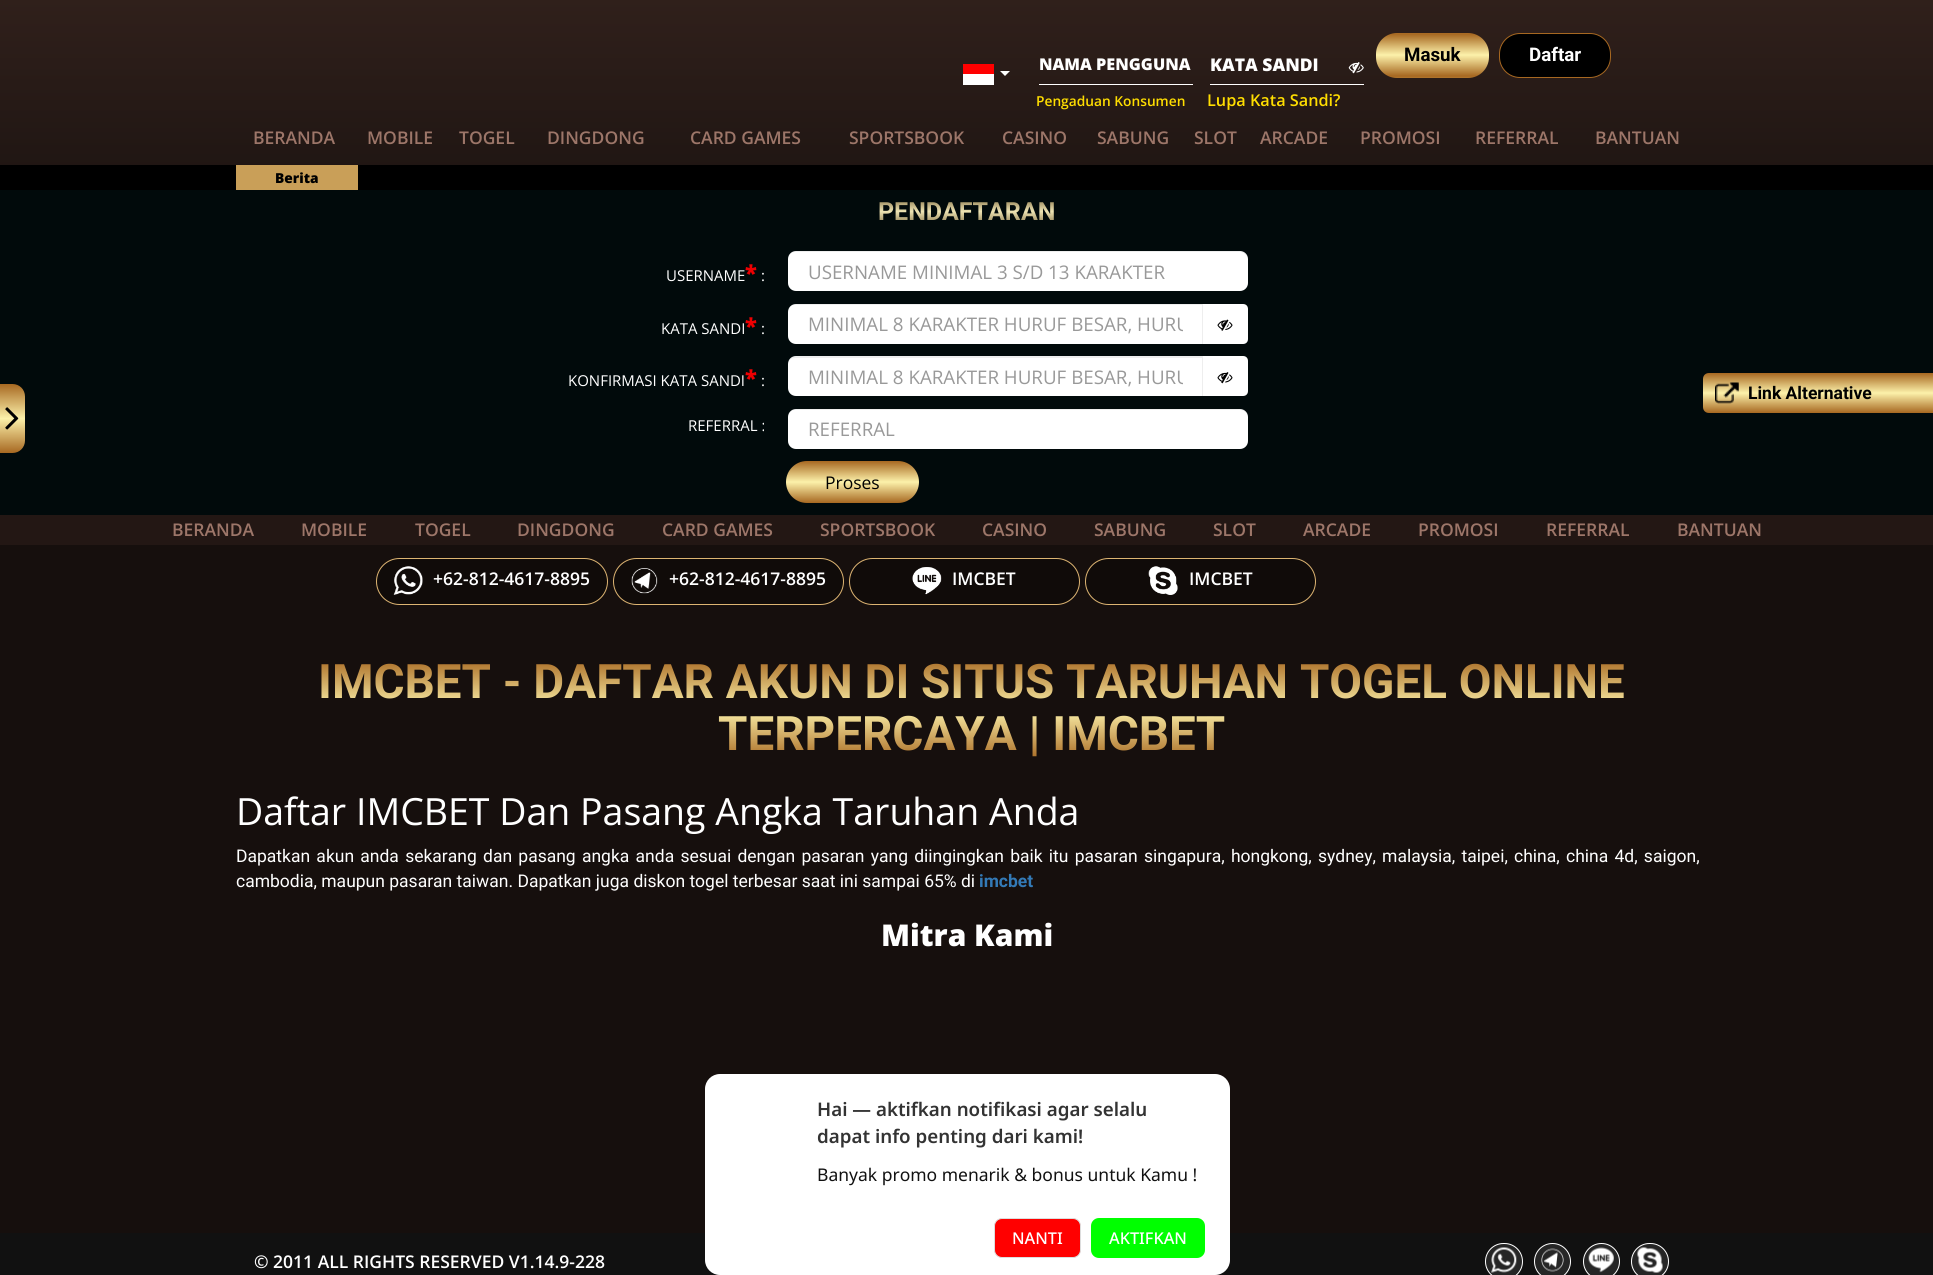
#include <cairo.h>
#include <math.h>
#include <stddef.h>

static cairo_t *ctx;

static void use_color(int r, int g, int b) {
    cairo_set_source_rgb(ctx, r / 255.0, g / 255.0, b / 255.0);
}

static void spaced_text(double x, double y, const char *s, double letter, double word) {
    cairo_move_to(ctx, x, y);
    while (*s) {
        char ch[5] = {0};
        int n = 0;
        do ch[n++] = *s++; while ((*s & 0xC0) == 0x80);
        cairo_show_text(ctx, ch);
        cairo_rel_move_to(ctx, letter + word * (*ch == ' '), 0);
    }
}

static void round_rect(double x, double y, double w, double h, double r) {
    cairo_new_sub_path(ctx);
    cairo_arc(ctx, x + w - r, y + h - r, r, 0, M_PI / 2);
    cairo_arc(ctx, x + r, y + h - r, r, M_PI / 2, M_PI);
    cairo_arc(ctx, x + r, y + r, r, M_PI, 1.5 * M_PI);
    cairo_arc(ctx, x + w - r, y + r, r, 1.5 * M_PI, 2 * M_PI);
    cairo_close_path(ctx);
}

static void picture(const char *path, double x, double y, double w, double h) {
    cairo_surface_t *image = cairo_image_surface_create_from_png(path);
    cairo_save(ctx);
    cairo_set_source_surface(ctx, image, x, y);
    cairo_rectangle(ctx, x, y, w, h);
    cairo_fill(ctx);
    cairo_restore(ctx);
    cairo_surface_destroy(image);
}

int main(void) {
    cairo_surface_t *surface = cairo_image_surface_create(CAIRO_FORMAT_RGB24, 1933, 1275);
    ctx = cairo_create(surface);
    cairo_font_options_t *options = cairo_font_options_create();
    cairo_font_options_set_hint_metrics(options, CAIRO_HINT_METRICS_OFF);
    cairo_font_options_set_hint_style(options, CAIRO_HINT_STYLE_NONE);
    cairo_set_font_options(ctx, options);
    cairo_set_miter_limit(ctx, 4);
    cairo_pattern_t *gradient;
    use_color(1, 10, 11);
    cairo_paint(ctx);
    gradient = cairo_pattern_create_linear(967, 190, 967, 0);
    cairo_pattern_add_color_stop_rgba(gradient, 0, 0.118, 0.082, 0.071, 1);
    cairo_pattern_add_color_stop_rgba(gradient, 1, 0.188, 0.125, 0.106, 1);
    cairo_set_source(ctx, gradient);
    cairo_pattern_destroy(gradient);
    cairo_rectangle(ctx, 0, 0, 1933, 165);
    cairo_fill(ctx);
    cairo_save(ctx);
    round_rect(1376, 33, 113, 45, 21);
    cairo_clip(ctx);
    gradient = cairo_pattern_create_linear(1433, 34, 1433, -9);
    cairo_pattern_add_color_stop_rgba(gradient, 0, 0.655, 0.408, 0.129, 1);
    cairo_pattern_add_color_stop_rgba(gradient, 0.5, 0.988, 0.945, 0.667, 1);
    cairo_pattern_add_color_stop_rgba(gradient, 1, 0.655, 0.408, 0.129, 1);
    cairo_set_source(ctx, gradient);
    cairo_pattern_destroy(gradient);
    cairo_rectangle(ctx, 1390, 33, 85, 1);
    cairo_fill(ctx);
    gradient = cairo_pattern_create_linear(1433, 76, 1433, 34);
    cairo_pattern_add_color_stop_rgba(gradient, 0, 0.655, 0.408, 0.129, 1);
    cairo_pattern_add_color_stop_rgba(gradient, 0.5, 0.988, 0.945, 0.667, 1);
    cairo_pattern_add_color_stop_rgba(gradient, 1, 0.655, 0.408, 0.129, 1);
    cairo_set_source(ctx, gradient);
    cairo_pattern_destroy(gradient);
    cairo_rectangle(ctx, 1376, 34, 113, 42);
    cairo_fill(ctx);
    gradient = cairo_pattern_create_linear(1433, 119, 1433, 76);
    cairo_pattern_add_color_stop_rgba(gradient, 0, 0.655, 0.408, 0.129, 1);
    cairo_pattern_add_color_stop_rgba(gradient, 0.5, 0.988, 0.945, 0.667, 1);
    cairo_pattern_add_color_stop_rgba(gradient, 1, 0.655, 0.408, 0.129, 1);
    cairo_set_source(ctx, gradient);
    cairo_pattern_destroy(gradient);
    cairo_rectangle(ctx, 1388, 76, 89, 2);
    cairo_fill(ctx);
    cairo_restore(ctx);
    cairo_select_font_face(ctx, "Roboto", CAIRO_FONT_SLANT_NORMAL, CAIRO_FONT_WEIGHT_BOLD);
    cairo_set_font_size(ctx, 18.75);
    use_color(0, 0, 0);
    cairo_move_to(ctx, 1404, 61);
    cairo_show_text(ctx, "Masuk");
    round_rect(1499.5, 33.5, 111, 44, 20.5);
    cairo_fill_preserve(ctx);
    use_color(167, 104, 33);
    cairo_set_line_width(ctx, 1);
    cairo_stroke(ctx);
    use_color(255, 255, 255);
    cairo_move_to(ctx, 1529, 61);
    cairo_show_text(ctx, "Daftar");
    use_color(255, 0, 0);
    cairo_rectangle(ctx, 963, 64, 31, 10);
    cairo_fill(ctx);
    use_color(255, 255, 255);
    cairo_new_path(ctx);
    cairo_move_to(ctx, 1000, 71);
    cairo_line_to(ctx, 1010, 71);
    cairo_line_to(ctx, 1005, 76);
    cairo_close_path(ctx);
    cairo_fill(ctx);
    cairo_rectangle(ctx, 963, 74, 31, 11);
    cairo_fill(ctx);
    cairo_select_font_face(ctx, "Open Sans ExtraBold", CAIRO_FONT_SLANT_NORMAL, CAIRO_FONT_WEIGHT_NORMAL);
    cairo_set_font_size(ctx, 16.25);
    cairo_move_to(ctx, 1039, 70);
    cairo_show_text(ctx, "NAMA PENGGUNA");
    cairo_rectangle(ctx, 1039, 84, 154, 1);
    cairo_fill(ctx);
    cairo_select_font_face(ctx, "Open Sans SemiBold", CAIRO_FONT_SLANT_NORMAL, CAIRO_FONT_WEIGHT_NORMAL);
    cairo_set_font_size(ctx, 13.75);
    use_color(255, 222, 0);
    cairo_move_to(ctx, 1036, 106);
    cairo_show_text(ctx, "Pengaduan Konsumen");
    cairo_select_font_face(ctx, "Open Sans ExtraBold", CAIRO_FONT_SLANT_NORMAL, CAIRO_FONT_WEIGHT_NORMAL);
    cairo_set_font_size(ctx, 17.5);
    use_color(255, 255, 255);
    cairo_move_to(ctx, 1210, 71);
    cairo_show_text(ctx, "KATA SANDI");
    cairo_rectangle(ctx, 1210, 84, 154, 1);
    cairo_fill(ctx);
    picture("img1.png", 1348, 62, 16, 12);
    cairo_select_font_face(ctx, "Open Sans SemiBold", CAIRO_FONT_SLANT_NORMAL, CAIRO_FONT_WEIGHT_NORMAL);
    cairo_set_font_size(ctx, 16.25);
    use_color(255, 222, 0);
    cairo_move_to(ctx, 1207, 106);
    cairo_show_text(ctx, "Lupa Kata Sandi?");
    cairo_set_font_size(ctx, 17.5);
    use_color(157, 118, 105);
    cairo_move_to(ctx, 253, 144);
    cairo_show_text(ctx, "BERANDA");
    cairo_move_to(ctx, 367, 144);
    cairo_show_text(ctx, "MOBILE");
    cairo_move_to(ctx, 459, 144);
    cairo_show_text(ctx, "TOGEL");
    cairo_move_to(ctx, 547, 144);
    cairo_show_text(ctx, "DINGDONG");
    cairo_move_to(ctx, 690, 144);
    cairo_show_text(ctx, "CARD GAMES");
    cairo_move_to(ctx, 849, 144);
    cairo_show_text(ctx, "SPORTSBOOK");
    cairo_move_to(ctx, 1002, 144);
    cairo_show_text(ctx, "CASINO");
    cairo_move_to(ctx, 1097, 144);
    cairo_show_text(ctx, "SABUNG");
    cairo_move_to(ctx, 1194, 144);
    cairo_show_text(ctx, "SLOT");
    cairo_move_to(ctx, 1260, 144);
    cairo_show_text(ctx, "ARCADE");
    cairo_move_to(ctx, 1360, 144);
    cairo_show_text(ctx, "PROMOSI");
    cairo_move_to(ctx, 1475, 144);
    cairo_show_text(ctx, "REFERRAL");
    cairo_move_to(ctx, 1595, 144);
    cairo_show_text(ctx, "BANTUAN");
    use_color(0, 0, 0);
    cairo_rectangle(ctx, 0, 165, 1933, 25);
    cairo_fill(ctx);
    use_color(201, 159, 88);
    cairo_rectangle(ctx, 236, 165, 122, 25);
    cairo_fill(ctx);
    cairo_select_font_face(ctx, "Open Sans ExtraBold", CAIRO_FONT_SLANT_NORMAL, CAIRO_FONT_WEIGHT_NORMAL);
    cairo_set_font_size(ctx, 13.75);
    use_color(0, 0, 0);
    cairo_move_to(ctx, 275, 183);
    cairo_show_text(ctx, "Berita");
    gradient = cairo_pattern_create_linear(13, 453, 13, 384);
    cairo_pattern_add_color_stop_rgba(gradient, 0, 0.655, 0.408, 0.129, 1);
    cairo_pattern_add_color_stop_rgba(gradient, 0.5, 0.988, 0.945, 0.667, 1);
    cairo_pattern_add_color_stop_rgba(gradient, 1, 0.655, 0.408, 0.129, 1);
    cairo_set_source(ctx, gradient);
    cairo_pattern_destroy(gradient);
    cairo_new_path(ctx);
    cairo_move_to(ctx, 0, 384);
    cairo_line_to(ctx, 12.5, 384);
    cairo_curve_to(ctx, 19.5, 384, 25, 389.5, 25, 396.5);
    cairo_line_to(ctx, 25, 440.5);
    cairo_curve_to(ctx, 25, 447.5, 19.5, 453, 12.5, 453);
    cairo_line_to(ctx, 0, 453);
    cairo_close_path(ctx);
    cairo_fill(ctx);
    picture("img2.png", 5, 407, 14, 23);
    cairo_select_font_face(ctx, "Roboto", CAIRO_FONT_SLANT_NORMAL, CAIRO_FONT_WEIGHT_BOLD);
    cairo_set_font_size(ctx, 25);
    gradient = cairo_pattern_create_linear(967, 198, 967, 225);
    cairo_pattern_add_color_stop_rgba(gradient, 0, 0.541, 0.467, 0.298, 1);
    cairo_pattern_add_color_stop_rgba(gradient, 0.5, 0.929, 0.89, 0.702, 1);
    cairo_pattern_add_color_stop_rgba(gradient, 1, 0.541, 0.467, 0.298, 1);
    cairo_set_source(ctx, gradient);
    cairo_pattern_destroy(gradient);
    cairo_move_to(ctx, 878, 220);
    cairo_show_text(ctx, "PENDAFTARAN");
    cairo_select_font_face(ctx, "Open Sans", CAIRO_FONT_SLANT_NORMAL, CAIRO_FONT_WEIGHT_NORMAL);
    cairo_set_font_size(ctx, 15);
    use_color(255, 255, 255);
    cairo_move_to(ctx, 666, 281);
    cairo_show_text(ctx, "USERNAME");
    cairo_select_font_face(ctx, "Open Sans ExtraBold", CAIRO_FONT_SLANT_NORMAL, CAIRO_FONT_WEIGHT_NORMAL);
    cairo_set_font_size(ctx, 22);
    use_color(238, 0, 2);
    cairo_move_to(ctx, 745, 281);
    cairo_show_text(ctx, "*");
    cairo_select_font_face(ctx, "Open Sans", CAIRO_FONT_SLANT_NORMAL, CAIRO_FONT_WEIGHT_NORMAL);
    cairo_set_font_size(ctx, 15);
    use_color(255, 255, 255);
    cairo_move_to(ctx, 761, 281);
    cairo_show_text(ctx, ":");
    round_rect(788, 251, 460, 40, 8);
    cairo_fill(ctx);
    cairo_set_source_rgba(ctx, 0, 0, 0, 0.07);
    cairo_new_path(ctx);
    cairo_move_to(ctx, 795, 252);
    cairo_line_to(ctx, 1240, 252);
    cairo_curve_to(ctx, 1244, 252, 1248, 256, 1248, 260);
    cairo_curve_to(ctx, 1248, 255, 1245, 251, 1240, 251);
    cairo_line_to(ctx, 796, 251);
    cairo_curve_to(ctx, 791, 251, 788, 255, 788, 260);
    cairo_curve_to(ctx, 788, 256, 791, 252, 795, 252);
    cairo_close_path(ctx);
    cairo_fill(ctx);
    cairo_set_font_size(ctx, 18.75);
    use_color(153, 153, 153);
    cairo_move_to(ctx, 808, 279);
    cairo_show_text(ctx, "USERNAME MINIMAL 3 S/D 13 KARAKTER");
    cairo_set_font_size(ctx, 15);
    use_color(255, 255, 255);
    cairo_move_to(ctx, 661, 334);
    cairo_show_text(ctx, "KATA SANDI");
    cairo_select_font_face(ctx, "Open Sans ExtraBold", CAIRO_FONT_SLANT_NORMAL, CAIRO_FONT_WEIGHT_NORMAL);
    cairo_set_font_size(ctx, 22);
    use_color(238, 0, 2);
    cairo_move_to(ctx, 745, 334);
    cairo_show_text(ctx, "*");
    cairo_select_font_face(ctx, "Open Sans", CAIRO_FONT_SLANT_NORMAL, CAIRO_FONT_WEIGHT_NORMAL);
    cairo_set_font_size(ctx, 15);
    use_color(255, 255, 255);
    cairo_move_to(ctx, 761, 334);
    cairo_show_text(ctx, ":");
    cairo_new_path(ctx);
    cairo_move_to(ctx, 796, 304);
    cairo_line_to(ctx, 1203, 304);
    cairo_line_to(ctx, 1203, 344);
    cairo_line_to(ctx, 796, 344);
    cairo_curve_to(ctx, 791.5, 344, 788, 340.5, 788, 336);
    cairo_line_to(ctx, 788, 312);
    cairo_curve_to(ctx, 788, 307.5, 791.5, 304, 796, 304);
    cairo_close_path(ctx);
    cairo_fill(ctx);
    cairo_set_source_rgba(ctx, 0, 0, 0, 0.07);
    cairo_new_path(ctx);
    cairo_move_to(ctx, 795, 305);
    cairo_line_to(ctx, 1202, 305);
    cairo_line_to(ctx, 1202, 344);
    cairo_line_to(ctx, 1203, 344);
    cairo_line_to(ctx, 1203, 304);
    cairo_line_to(ctx, 796, 304);
    cairo_curve_to(ctx, 792, 304, 789, 307, 788, 311);
    cairo_curve_to(ctx, 789, 307, 791, 305, 795, 305);
    cairo_close_path(ctx);
    cairo_fill(ctx);
    cairo_save(ctx);
    cairo_rectangle(ctx, 808, 311, 375, 25);
    cairo_clip(ctx);
    cairo_set_font_size(ctx, 18.75);
    use_color(153, 153, 153);
    cairo_move_to(ctx, 808, 331);
    cairo_show_text(ctx, "MINIMAL 8 KARAKTER HURUF BESAR, HURU");
    cairo_restore(ctx);
    use_color(255, 255, 255);
    cairo_new_path(ctx);
    cairo_move_to(ctx, 1203, 304);
    cairo_line_to(ctx, 1243, 304);
    cairo_curve_to(ctx, 1246, 304, 1248, 306, 1248, 309);
    cairo_line_to(ctx, 1248, 339);
    cairo_curve_to(ctx, 1248, 342, 1246, 344, 1243, 344);
    cairo_line_to(ctx, 1203, 344);
    cairo_close_path(ctx);
    cairo_fill(ctx);
    picture("img3.png", 1217, 319, 16, 12);
    cairo_move_to(ctx, 568, 386);
    cairo_show_text(ctx, "KONFIRMASI KATA SANDI");
    cairo_select_font_face(ctx, "Open Sans ExtraBold", CAIRO_FONT_SLANT_NORMAL, CAIRO_FONT_WEIGHT_NORMAL);
    cairo_set_font_size(ctx, 22);
    use_color(238, 0, 2);
    cairo_move_to(ctx, 745, 386);
    cairo_show_text(ctx, "*");
    cairo_select_font_face(ctx, "Open Sans", CAIRO_FONT_SLANT_NORMAL, CAIRO_FONT_WEIGHT_NORMAL);
    cairo_set_font_size(ctx, 15);
    use_color(255, 255, 255);
    cairo_move_to(ctx, 761, 386);
    cairo_show_text(ctx, ":");
    cairo_new_path(ctx);
    cairo_move_to(ctx, 796, 356);
    cairo_line_to(ctx, 1203, 356);
    cairo_line_to(ctx, 1203, 396);
    cairo_line_to(ctx, 796, 396);
    cairo_curve_to(ctx, 791.5, 396, 788, 392.5, 788, 388);
    cairo_line_to(ctx, 788, 364);
    cairo_curve_to(ctx, 788, 359.5, 791.5, 356, 796, 356);
    cairo_close_path(ctx);
    cairo_fill(ctx);
    cairo_set_source_rgba(ctx, 0, 0, 0, 0.07);
    cairo_new_path(ctx);
    cairo_move_to(ctx, 795, 358);
    cairo_line_to(ctx, 1202, 358);
    cairo_line_to(ctx, 1202, 396);
    cairo_line_to(ctx, 1203, 396);
    cairo_line_to(ctx, 1203, 356);
    cairo_line_to(ctx, 796, 356);
    cairo_curve_to(ctx, 792, 356, 788, 360, 788, 364);
    cairo_curve_to(ctx, 789, 360, 791, 358, 795, 358);
    cairo_close_path(ctx);
    cairo_fill(ctx);
    cairo_save(ctx);
    cairo_rectangle(ctx, 808, 364, 375, 25);
    cairo_clip(ctx);
    cairo_set_font_size(ctx, 18.75);
    use_color(153, 153, 153);
    cairo_move_to(ctx, 808, 384);
    cairo_show_text(ctx, "MINIMAL 8 KARAKTER HURUF BESAR, HURU");
    cairo_restore(ctx);
    use_color(255, 255, 255);
    cairo_new_path(ctx);
    cairo_move_to(ctx, 1203, 356);
    cairo_line_to(ctx, 1243, 356);
    cairo_curve_to(ctx, 1246, 356, 1248, 358, 1248, 361);
    cairo_line_to(ctx, 1248, 391);
    cairo_curve_to(ctx, 1248, 394, 1246, 396, 1243, 396);
    cairo_line_to(ctx, 1203, 396);
    cairo_close_path(ctx);
    cairo_fill(ctx);
    picture("img4.png", 1217, 372, 16, 12);
    cairo_move_to(ctx, 688, 431);
    cairo_show_text(ctx, "REFERRAL :");
    round_rect(788, 409, 460, 40, 8);
    cairo_fill(ctx);
    cairo_set_source_rgba(ctx, 0, 0, 0, 0.07);
    cairo_new_path(ctx);
    cairo_move_to(ctx, 795, 410);
    cairo_line_to(ctx, 1240, 410);
    cairo_curve_to(ctx, 1244, 410, 1248, 413, 1248, 418);
    cairo_curve_to(ctx, 1248, 413, 1245, 409, 1240, 409);
    cairo_line_to(ctx, 796, 409);
    cairo_curve_to(ctx, 791, 409, 788, 413, 788, 418);
    cairo_curve_to(ctx, 788, 413, 791, 410, 795, 410);
    cairo_close_path(ctx);
    cairo_fill(ctx);
    cairo_set_font_size(ctx, 18.75);
    use_color(153, 153, 153);
    cairo_move_to(ctx, 808, 436);
    cairo_show_text(ctx, "REFERRAL");
    gradient = cairo_pattern_create_linear(853, 503, 853, 461);
    cairo_pattern_add_color_stop_rgba(gradient, 0, 0.655, 0.408, 0.129, 1);
    cairo_pattern_add_color_stop_rgba(gradient, 0.5, 0.988, 0.945, 0.667, 1);
    cairo_pattern_add_color_stop_rgba(gradient, 1, 0.655, 0.408, 0.129, 1);
    cairo_set_source(ctx, gradient);
    cairo_pattern_destroy(gradient);
    round_rect(786, 461, 133, 42, 21);
    cairo_fill(ctx);
    cairo_set_font_size(ctx, 17.5);
    use_color(0, 0, 0);
    cairo_move_to(ctx, 825, 489);
    cairo_show_text(ctx, "Proses");
    gradient = cairo_pattern_create_linear(1818, 413, 1818, 373);
    cairo_pattern_add_color_stop_rgba(gradient, 0, 0.655, 0.408, 0.129, 1);
    cairo_pattern_add_color_stop_rgba(gradient, 0.5, 0.988, 0.945, 0.667, 1);
    cairo_pattern_add_color_stop_rgba(gradient, 1, 0.655, 0.408, 0.129, 1);
    cairo_set_source(ctx, gradient);
    cairo_pattern_destroy(gradient);
    cairo_new_path(ctx);
    cairo_move_to(ctx, 1709, 373);
    cairo_line_to(ctx, 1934, 373);
    cairo_line_to(ctx, 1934, 413);
    cairo_line_to(ctx, 1709, 413);
    cairo_curve_to(ctx, 1705.5, 413, 1703, 410.5, 1703, 407);
    cairo_line_to(ctx, 1703, 379);
    cairo_curve_to(ctx, 1703, 375.5, 1705.5, 373, 1709, 373);
    cairo_close_path(ctx);
    cairo_fill(ctx);
    picture("img5.png", 1715, 382, 24, 22);
    cairo_select_font_face(ctx, "Roboto", CAIRO_FONT_SLANT_NORMAL, CAIRO_FONT_WEIGHT_BOLD);
    use_color(0, 0, 0);
    cairo_move_to(ctx, 1748, 399);
    cairo_show_text(ctx, "Link Alternative");
    use_color(22, 15, 13);
    cairo_rectangle(ctx, 0, 545, 1933, 688);
    cairo_fill(ctx);
    use_color(35, 23, 20);
    cairo_rectangle(ctx, 0, 515, 1933, 30);
    cairo_fill(ctx);
    cairo_select_font_face(ctx, "Open Sans SemiBold", CAIRO_FONT_SLANT_NORMAL, CAIRO_FONT_WEIGHT_NORMAL);
    use_color(157, 118, 105);
    cairo_move_to(ctx, 172, 536);
    cairo_show_text(ctx, "BERANDA");
    cairo_move_to(ctx, 301, 536);
    cairo_show_text(ctx, "MOBILE");
    cairo_move_to(ctx, 415, 536);
    cairo_show_text(ctx, "TOGEL");
    cairo_move_to(ctx, 517, 536);
    cairo_show_text(ctx, "DINGDONG");
    cairo_move_to(ctx, 662, 536);
    cairo_show_text(ctx, "CARD GAMES");
    cairo_move_to(ctx, 820, 536);
    cairo_show_text(ctx, "SPORTSBOOK");
    cairo_move_to(ctx, 982, 536);
    cairo_show_text(ctx, "CASINO");
    cairo_move_to(ctx, 1094, 536);
    cairo_show_text(ctx, "SABUNG");
    cairo_move_to(ctx, 1213, 536);
    cairo_show_text(ctx, "SLOT");
    cairo_move_to(ctx, 1303, 536);
    cairo_show_text(ctx, "ARCADE");
    cairo_move_to(ctx, 1418, 536);
    cairo_show_text(ctx, "PROMOSI");
    cairo_move_to(ctx, 1546, 536);
    cairo_show_text(ctx, "REFERRAL");
    cairo_move_to(ctx, 1677, 536);
    cairo_show_text(ctx, "BANTUAN");
    use_color(16, 11, 9);
    round_rect(376.5, 558.5, 231, 46, 23);
    cairo_fill_preserve(ctx);
    use_color(221, 180, 114);
    cairo_stroke(ctx);
    picture("img6.png", 393, 566, 30, 29);
    use_color(255, 255, 255);
    cairo_move_to(ctx, 433, 585);
    cairo_show_text(ctx, "+62-812-4617-8895");
    use_color(16, 11, 9);
    round_rect(613.5, 558.5, 230, 46, 23);
    cairo_fill_preserve(ctx);
    use_color(221, 180, 114);
    cairo_stroke(ctx);
    picture("img7.png", 631, 568, 27, 26);
    use_color(255, 255, 255);
    cairo_move_to(ctx, 669, 585);
    cairo_show_text(ctx, "+62-812-4617-8895");
    use_color(16, 11, 9);
    round_rect(849.5, 558.5, 230, 46, 23);
    cairo_fill_preserve(ctx);
    use_color(221, 180, 114);
    cairo_stroke(ctx);
    picture("img8.png", 912, 567, 30, 28);
    use_color(255, 255, 255);
    cairo_move_to(ctx, 952, 585);
    cairo_show_text(ctx, "IMCBET");
    use_color(16, 11, 9);
    round_rect(1085.5, 558.5, 230, 46, 23);
    cairo_fill_preserve(ctx);
    use_color(221, 180, 114);
    cairo_stroke(ctx);
    picture("img9.png", 1148, 566, 30, 29);
    use_color(255, 255, 255);
    cairo_move_to(ctx, 1189, 585);
    cairo_show_text(ctx, "IMCBET");
    cairo_select_font_face(ctx, "Roboto", CAIRO_FONT_SLANT_NORMAL, CAIRO_FONT_WEIGHT_BOLD);
    cairo_set_font_size(ctx, 47.5);
    gradient = cairo_pattern_create_linear(972, 657, 972, 761);
    cairo_pattern_add_color_stop_rgba(gradient, 0, 0.655, 0.408, 0.129, 1);
    cairo_pattern_add_color_stop_rgba(gradient, 0.5, 0.988, 0.945, 0.667, 1);
    cairo_pattern_add_color_stop_rgba(gradient, 1, 0.655, 0.408, 0.129, 1);
    cairo_set_source(ctx, gradient);
    cairo_pattern_destroy(gradient);
    cairo_move_to(ctx, 318, 698);
    cairo_show_text(ctx, "IMCBET - DAFTAR AKUN DI SITUS TARUHAN TOGEL ONLINE");
    cairo_move_to(ctx, 718, 750);
    cairo_show_text(ctx, "TERPERCAYA | IMCBET");
    cairo_select_font_face(ctx, "Open Sans", CAIRO_FONT_SLANT_NORMAL, CAIRO_FONT_WEIGHT_NORMAL);
    cairo_set_font_size(ctx, 37.5);
    use_color(255, 255, 255);
    cairo_move_to(ctx, 236, 825);
    cairo_show_text(ctx, "Daftar IMCBET Dan Pasang Angka Taruhan Anda");
    cairo_select_font_face(ctx, "Roboto", CAIRO_FONT_SLANT_NORMAL, CAIRO_FONT_WEIGHT_NORMAL);
    cairo_set_font_size(ctx, 17.5);
    spaced_text(236, 862, "Dapatkan akun anda sekarang dan pasang angka anda sesuai dengan pasaran yang diingingkan baik itu pasaran singapura, hongkong, sydney, malaysia, taipei, china, china 4d, saigon,", 0, 1.9);
    cairo_move_to(ctx, 236, 887);
    cairo_show_text(ctx, "cambodia, maupun pasaran taiwan. Dapatkan juga diskon togel terbesar saat ini sampai 65% di");
    cairo_select_font_face(ctx, "Roboto", CAIRO_FONT_SLANT_NORMAL, CAIRO_FONT_WEIGHT_BOLD);
    use_color(51, 122, 183);
    cairo_move_to(ctx, 979, 887);
    cairo_show_text(ctx, "imcbet");
    cairo_select_font_face(ctx, "Open Sans ExtraBold", CAIRO_FONT_SLANT_NORMAL, CAIRO_FONT_WEIGHT_NORMAL);
    cairo_set_font_size(ctx, 30);
    use_color(255, 255, 255);
    cairo_move_to(ctx, 881, 946);
    cairo_show_text(ctx, "Mitra Kami");
    use_color(17, 17, 17);
    cairo_rectangle(ctx, 0, 1233, 1933, 42);
    cairo_fill(ctx);
    use_color(255, 255, 255);
    round_rect(705, 1074, 525, 201, 15);
    cairo_fill(ctx);
    cairo_select_font_face(ctx, "Noto Sans SemiBold", CAIRO_FONT_SLANT_NORMAL, CAIRO_FONT_WEIGHT_NORMAL);
    cairo_set_font_size(ctx, 18.75);
    use_color(51, 51, 51);
    cairo_move_to(ctx, 817, 1116);
    cairo_show_text(ctx, "Hai — aktifkan notifikasi agar selalu");
    cairo_move_to(ctx, 817, 1143);
    cairo_show_text(ctx, "dapat info penting dari kami!");
    cairo_select_font_face(ctx, "Noto Sans", CAIRO_FONT_SLANT_NORMAL, CAIRO_FONT_WEIGHT_NORMAL);
    cairo_set_font_size(ctx, 17.5);
    use_color(17, 17, 17);
    cairo_move_to(ctx, 817, 1181);
    cairo_show_text(ctx, "Banyak promo menarik & bonus untuk Kamu !");
    use_color(255, 0, 0);
    round_rect(994.5, 1218.5, 86, 39, 7.5);
    cairo_fill_preserve(ctx);
    use_color(221, 221, 221);
    cairo_stroke(ctx);
    cairo_select_font_face(ctx, "Noto Sans Medium", CAIRO_FONT_SLANT_NORMAL, CAIRO_FONT_WEIGHT_NORMAL);
    cairo_set_font_size(ctx, 16.25);
    use_color(255, 255, 255);
    cairo_move_to(ctx, 1012, 1244);
    cairo_show_text(ctx, "NANTI");
    use_color(0, 255, 0);
    round_rect(1091, 1218, 114, 40, 8);
    cairo_fill(ctx);
    use_color(255, 255, 255);
    cairo_move_to(ctx, 1109, 1244);
    cairo_show_text(ctx, "AKTIFKAN");
    cairo_select_font_face(ctx, "Open Sans SemiBold", CAIRO_FONT_SLANT_NORMAL, CAIRO_FONT_WEIGHT_NORMAL);
    cairo_set_font_size(ctx, 17.5);
    cairo_move_to(ctx, 254, 1268);
    cairo_show_text(ctx, "© 2011 ALL RIGHTS RESERVED V1.14.9-228");
    use_color(38, 38, 38);
    round_rect(1485.5, 1243.5, 37, 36, 18);
    cairo_fill_preserve(ctx);
    use_color(255, 255, 255);
    cairo_stroke(ctx);
    picture("img10.png", 1491, 1247, 26, 26);
    use_color(38, 38, 38);
    cairo_arc(ctx, 1552.5, 1261.5, 18, 0, 2 * M_PI);
    cairo_fill_preserve(ctx);
    use_color(255, 255, 255);
    cairo_stroke(ctx);
    picture("img11.png", 1541, 1248, 23, 24);
    use_color(38, 38, 38);
    cairo_arc(ctx, 1601.5, 1261.5, 18, 0, 2 * M_PI);
    cairo_fill_preserve(ctx);
    use_color(255, 255, 255);
    cairo_stroke(ctx);
    picture("img12.png", 1588, 1247, 26, 26);
    use_color(38, 38, 38);
    round_rect(1631.5, 1243.5, 37, 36, 18);
    cairo_fill_preserve(ctx);
    use_color(255, 255, 255);
    cairo_stroke(ctx);
    picture("img13.png", 1637, 1247, 26, 26);
    cairo_surface_write_to_png(surface, "result.png");
    cairo_font_options_destroy(options);
    cairo_destroy(ctx);
    cairo_surface_destroy(surface);
    return 0;
}
